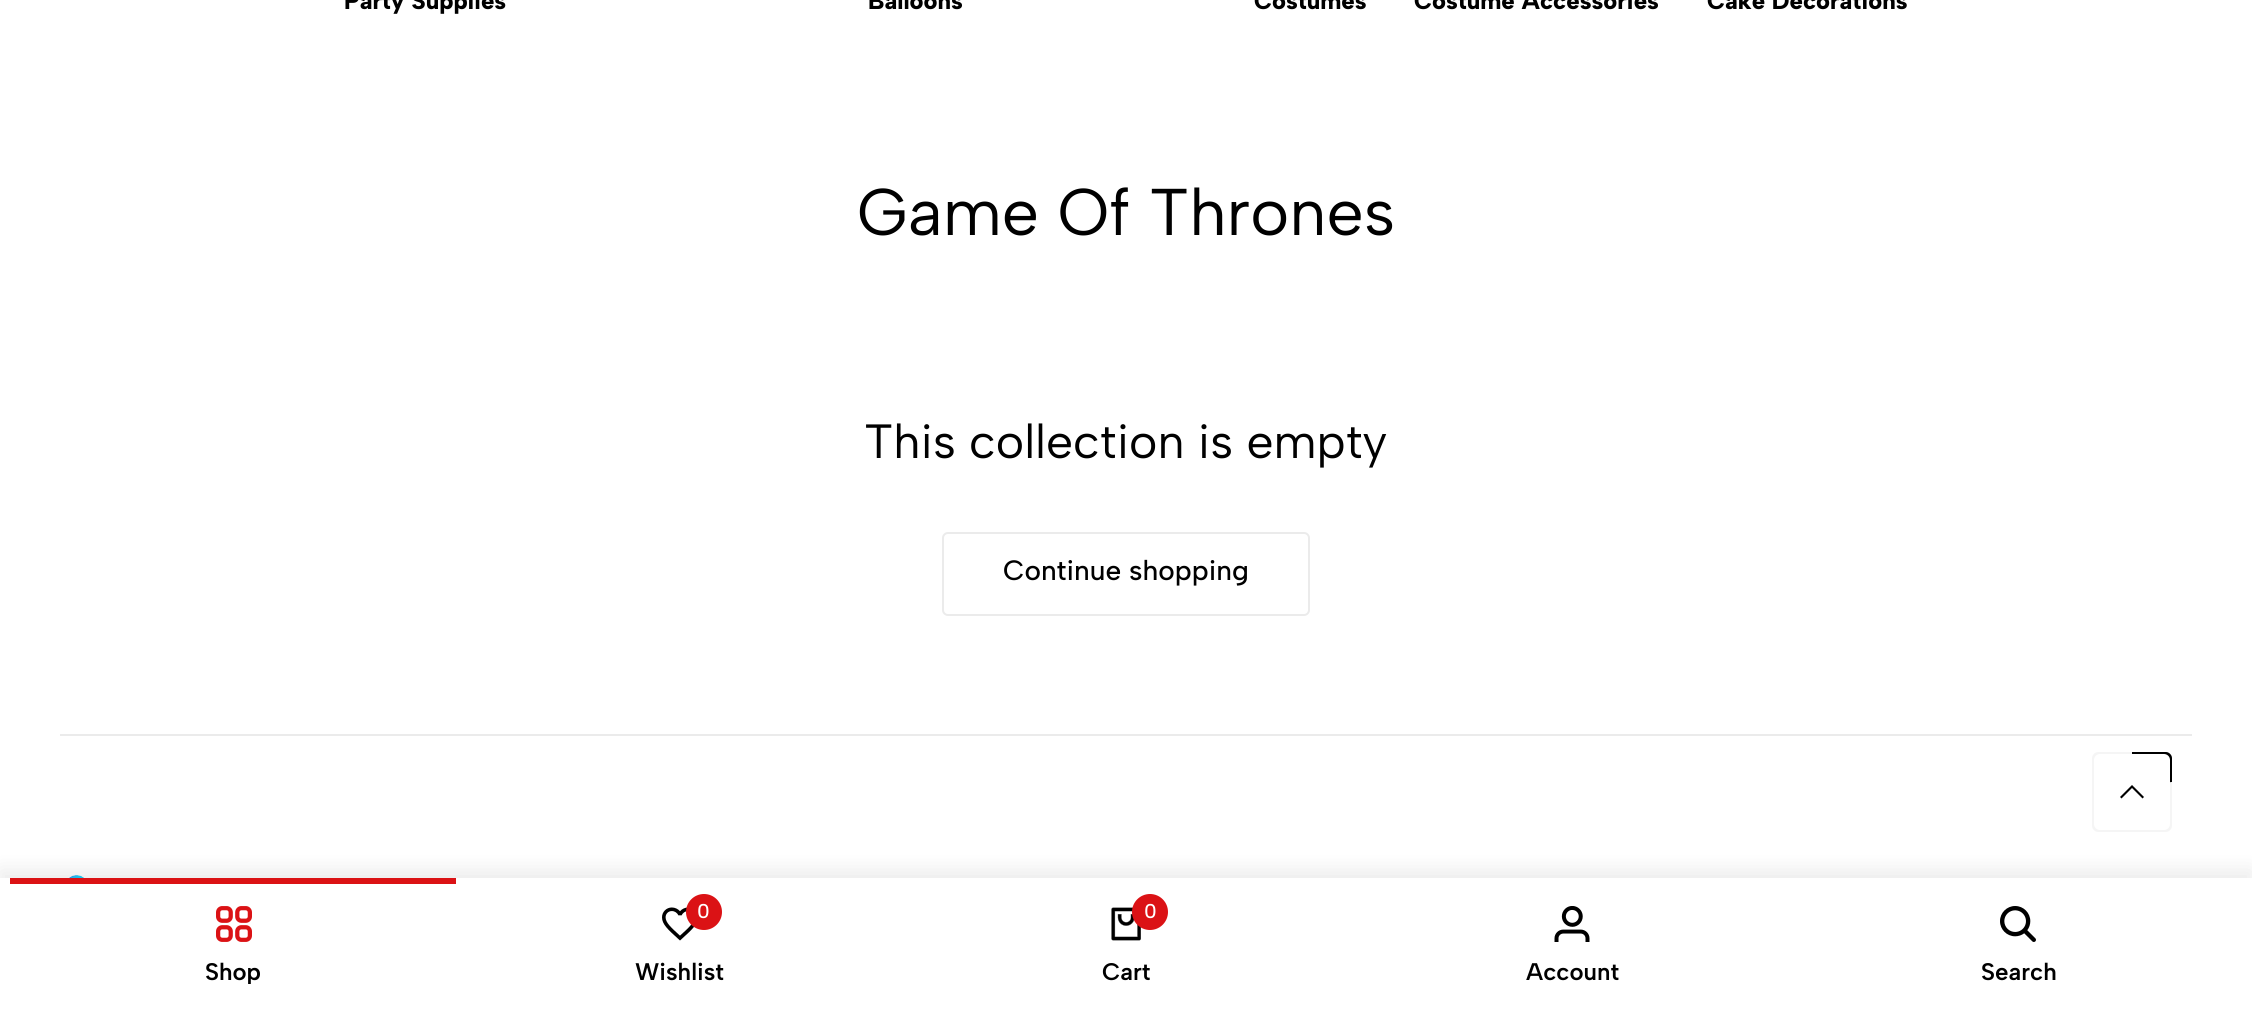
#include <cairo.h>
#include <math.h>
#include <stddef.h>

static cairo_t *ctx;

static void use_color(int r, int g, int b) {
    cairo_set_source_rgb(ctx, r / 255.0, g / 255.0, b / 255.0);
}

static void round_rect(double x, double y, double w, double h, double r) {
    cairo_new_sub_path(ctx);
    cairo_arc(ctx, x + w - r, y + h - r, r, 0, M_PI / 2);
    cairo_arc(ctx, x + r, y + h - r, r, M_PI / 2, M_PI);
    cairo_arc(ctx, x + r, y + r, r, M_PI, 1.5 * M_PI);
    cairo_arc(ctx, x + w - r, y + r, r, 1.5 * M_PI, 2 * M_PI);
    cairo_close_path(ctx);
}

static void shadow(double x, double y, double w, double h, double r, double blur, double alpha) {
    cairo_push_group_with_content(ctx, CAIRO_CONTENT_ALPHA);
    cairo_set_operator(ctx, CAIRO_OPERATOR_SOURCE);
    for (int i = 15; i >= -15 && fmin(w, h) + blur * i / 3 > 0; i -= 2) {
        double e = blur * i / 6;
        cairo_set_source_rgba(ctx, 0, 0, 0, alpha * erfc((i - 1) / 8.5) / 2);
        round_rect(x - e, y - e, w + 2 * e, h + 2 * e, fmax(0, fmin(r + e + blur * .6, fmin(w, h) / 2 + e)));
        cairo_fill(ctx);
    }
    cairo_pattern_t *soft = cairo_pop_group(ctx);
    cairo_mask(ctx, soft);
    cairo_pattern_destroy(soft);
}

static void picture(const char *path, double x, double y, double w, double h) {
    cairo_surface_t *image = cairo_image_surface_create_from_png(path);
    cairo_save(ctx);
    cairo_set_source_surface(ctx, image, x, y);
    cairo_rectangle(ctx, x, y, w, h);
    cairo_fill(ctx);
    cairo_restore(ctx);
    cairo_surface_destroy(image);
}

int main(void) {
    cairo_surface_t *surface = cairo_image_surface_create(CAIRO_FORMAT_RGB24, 2252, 1011);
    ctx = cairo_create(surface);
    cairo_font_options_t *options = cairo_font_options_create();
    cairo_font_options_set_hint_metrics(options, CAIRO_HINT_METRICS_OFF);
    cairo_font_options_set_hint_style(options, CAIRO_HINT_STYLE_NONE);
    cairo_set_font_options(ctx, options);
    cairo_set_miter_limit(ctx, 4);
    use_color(255, 255, 255);
    cairo_paint(ctx);
    cairo_select_font_face(ctx, "Albert Sans ExtraBold", CAIRO_FONT_SLANT_NORMAL, CAIRO_FONT_WEIGHT_NORMAL);
    cairo_set_font_size(ctx, 24);
    use_color(0, 0, 0);
    cairo_move_to(ctx, 344, 9);
    cairo_show_text(ctx, "Party Supplies");
    cairo_move_to(ctx, 868, 9);
    cairo_show_text(ctx, "Balloons");
    cairo_move_to(ctx, 1254, 9);
    cairo_show_text(ctx, "Costumes");
    cairo_move_to(ctx, 1414, 9);
    cairo_show_text(ctx, "Costume Accessories");
    cairo_move_to(ctx, 1707, 9);
    cairo_show_text(ctx, "Cake Decorations");
    cairo_select_font_face(ctx, "Albert Sans", CAIRO_FONT_SLANT_NORMAL, CAIRO_FONT_WEIGHT_NORMAL);
    cairo_set_font_size(ctx, 66);
    cairo_move_to(ctx, 857, 235);
    cairo_show_text(ctx, "Game Of Thrones");
    cairo_set_font_size(ctx, 48);
    cairo_move_to(ctx, 864, 458);
    cairo_show_text(ctx, "This collection is empty");
    round_rect(943, 533, 366, 82, 5);
    use_color(235, 235, 235);
    cairo_stroke(ctx);
    cairo_select_font_face(ctx, "Albert Sans Medium", CAIRO_FONT_SLANT_NORMAL, CAIRO_FONT_WEIGHT_NORMAL);
    cairo_set_font_size(ctx, 28);
    use_color(0, 0, 0);
    cairo_move_to(ctx, 1003, 580);
    cairo_show_text(ctx, "Continue shopping");
    use_color(235, 235, 235);
    cairo_rectangle(ctx, 60, 734, 2132, 2);
    cairo_fill(ctx);
    picture("img1.png", 69, 875, 15, 3);
    use_color(0, 0, 0);
    cairo_new_path(ctx);
    cairo_move_to(ctx, 2132, 792);
    cairo_line_to(ctx, 2172, 782);
    cairo_line_to(ctx, 2172, 758);
    cairo_curve_to(ctx, 2172, 755, 2169, 752, 2166, 752);
    cairo_line_to(ctx, 2132, 752);
    cairo_close_path(ctx);
    cairo_fill(ctx);
    use_color(245, 245, 245);
    cairo_new_path(ctx);
    cairo_move_to(ctx, 2132, 792);
    cairo_line_to(ctx, 2132, 752);
    cairo_line_to(ctx, 2098, 752);
    cairo_curve_to(ctx, 2095, 752, 2092, 755, 2092, 758);
    cairo_line_to(ctx, 2092, 826);
    cairo_curve_to(ctx, 2092, 829, 2095, 832, 2098, 832);
    cairo_line_to(ctx, 2166, 832);
    cairo_curve_to(ctx, 2169, 832, 2172, 829, 2172, 826);
    cairo_line_to(ctx, 2172, 782);
    cairo_close_path(ctx);
    cairo_fill(ctx);
    use_color(255, 255, 255);
    round_rect(2094, 754, 76, 76, 6);
    cairo_fill(ctx);
    use_color(0, 0, 0);
    cairo_new_path(ctx);
    cairo_move_to(ctx, 2133.5, 786.5);
    cairo_line_to(ctx, 2132, 785);
    cairo_line_to(ctx, 2120, 797);
    cairo_line_to(ctx, 2121.5, 798.5);
    cairo_line_to(ctx, 2132, 788);
    cairo_line_to(ctx, 2142.5, 798.5);
    cairo_line_to(ctx, 2144, 797);
    cairo_line_to(ctx, 2138, 791);
    cairo_close_path(ctx);
    cairo_fill(ctx);
    use_color(0, 0, 0);
    shadow(0, 870, 2252, 134, 0, 10, 0.08);
    use_color(255, 255, 255);
    cairo_rectangle(ctx, 0, 878, 2252, 133);
    cairo_fill(ctx);
    use_color(219, 18, 21);
    cairo_rectangle(ctx, 10, 878, 446, 6);
    cairo_fill(ctx);
    picture("img2.png", 216, 906, 36, 36);
    cairo_save(ctx);
    cairo_rectangle(ctx, 30, 960, 406, 24);
    cairo_clip(ctx);
    cairo_select_font_face(ctx, "Albert Sans SemiBold", CAIRO_FONT_SLANT_NORMAL, CAIRO_FONT_WEIGHT_NORMAL);
    cairo_set_font_size(ctx, 24);
    use_color(0, 0, 0);
    cairo_move_to(ctx, 205, 980);
    cairo_show_text(ctx, "Shop");
    cairo_restore(ctx);
    picture("img3.png", 662, 907, 32, 34);
    cairo_arc(ctx, 704, 912, 18, 0, 2 * M_PI);
    cairo_fill(ctx);
    cairo_set_font_size(ctx, 20);
    use_color(255, 255, 255);
    cairo_move_to(ctx, 697, 918);
    cairo_show_text(ctx, "0");
    cairo_select_font_face(ctx, "Albert Sans SemiBold", CAIRO_FONT_SLANT_NORMAL, CAIRO_FONT_WEIGHT_NORMAL);
    cairo_set_font_size(ctx, 24);
    use_color(0, 0, 0);
    cairo_move_to(ctx, 635, 980);
    cairo_show_text(ctx, "Wishlist");
    picture("img4.png", 1111, 907, 30, 34);
    use_color(219, 18, 21);
    cairo_arc(ctx, 1150, 912, 18, 0, 2 * M_PI);
    cairo_fill(ctx);
    cairo_select_font_face(ctx, "Albert Sans Medium", CAIRO_FONT_SLANT_NORMAL, CAIRO_FONT_WEIGHT_NORMAL);
    cairo_set_font_size(ctx, 20);
    use_color(255, 255, 255);
    cairo_move_to(ctx, 1144, 918);
    cairo_show_text(ctx, "0");
    cairo_select_font_face(ctx, "Albert Sans SemiBold", CAIRO_FONT_SLANT_NORMAL, CAIRO_FONT_WEIGHT_NORMAL);
    cairo_set_font_size(ctx, 24);
    use_color(0, 0, 0);
    cairo_move_to(ctx, 1102, 980);
    cairo_show_text(ctx, "Cart");
    picture("img5.png", 1554, 906, 36, 36);
    cairo_move_to(ctx, 1526, 980);
    cairo_show_text(ctx, "Account");
    picture("img6.png", 2000, 906, 36, 36);
    cairo_move_to(ctx, 1981, 980);
    cairo_show_text(ctx, "Search");
    cairo_surface_write_to_png(surface, "result.png");
    cairo_font_options_destroy(options);
    cairo_destroy(ctx);
    cairo_surface_destroy(surface);
    return 0;
}
